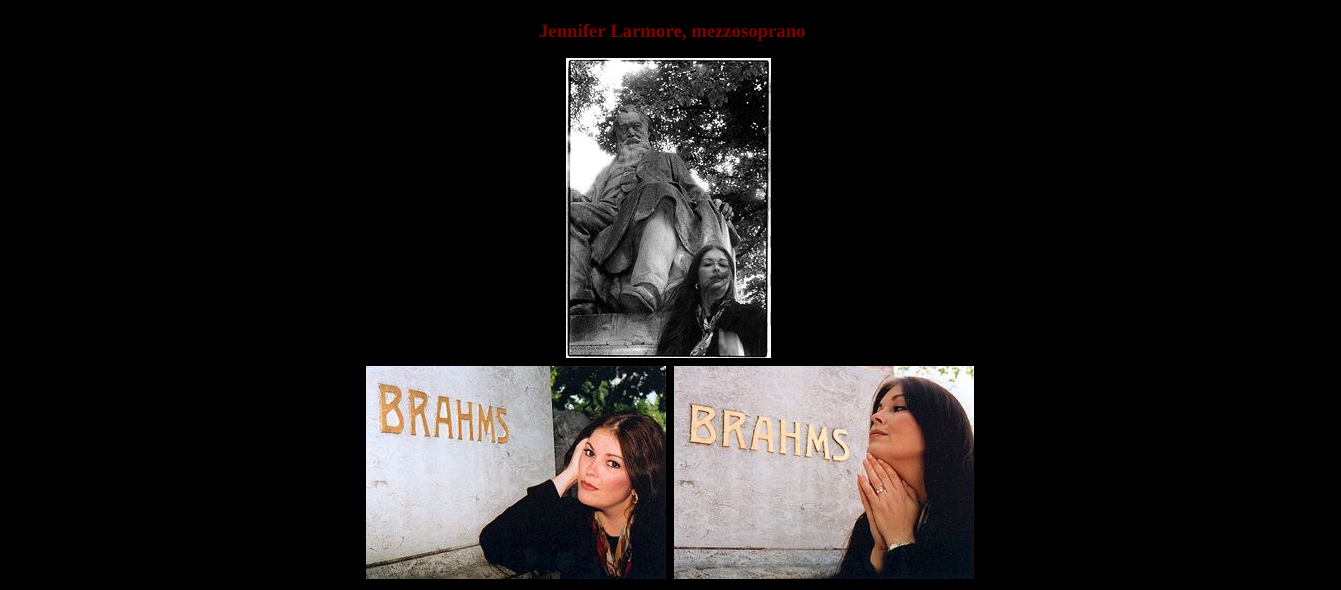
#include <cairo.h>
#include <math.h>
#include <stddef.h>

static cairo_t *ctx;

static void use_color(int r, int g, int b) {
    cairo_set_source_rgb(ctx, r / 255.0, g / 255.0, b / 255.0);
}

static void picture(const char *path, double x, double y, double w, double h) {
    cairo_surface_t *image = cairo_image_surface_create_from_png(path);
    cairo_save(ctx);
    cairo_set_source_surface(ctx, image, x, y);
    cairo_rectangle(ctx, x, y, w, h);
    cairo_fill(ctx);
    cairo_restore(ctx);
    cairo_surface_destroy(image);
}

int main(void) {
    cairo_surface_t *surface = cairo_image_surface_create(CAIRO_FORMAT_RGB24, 1341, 590);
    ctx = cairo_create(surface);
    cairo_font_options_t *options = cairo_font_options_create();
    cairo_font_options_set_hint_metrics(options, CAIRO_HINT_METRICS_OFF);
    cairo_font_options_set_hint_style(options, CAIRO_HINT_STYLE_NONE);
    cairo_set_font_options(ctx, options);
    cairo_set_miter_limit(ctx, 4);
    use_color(0, 0, 0);
    cairo_paint(ctx);
    cairo_select_font_face(ctx, "Liberation Serif", CAIRO_FONT_SLANT_NORMAL, CAIRO_FONT_WEIGHT_BOLD);
    cairo_set_font_size(ctx, 18.7);
    use_color(128, 0, 0);
    cairo_move_to(ctx, 539, 37);
    cairo_show_text(ctx, "Jennifer Larmore, mezzosoprano");
    picture("img1.png", 566, 58, 208, 300);
    picture("img2.png", 366, 366, 300, 213);
    picture("img3.png", 674, 366, 300, 213);
    cairo_surface_write_to_png(surface, "result.png");
    cairo_font_options_destroy(options);
    cairo_destroy(ctx);
    cairo_surface_destroy(surface);
    return 0;
}
